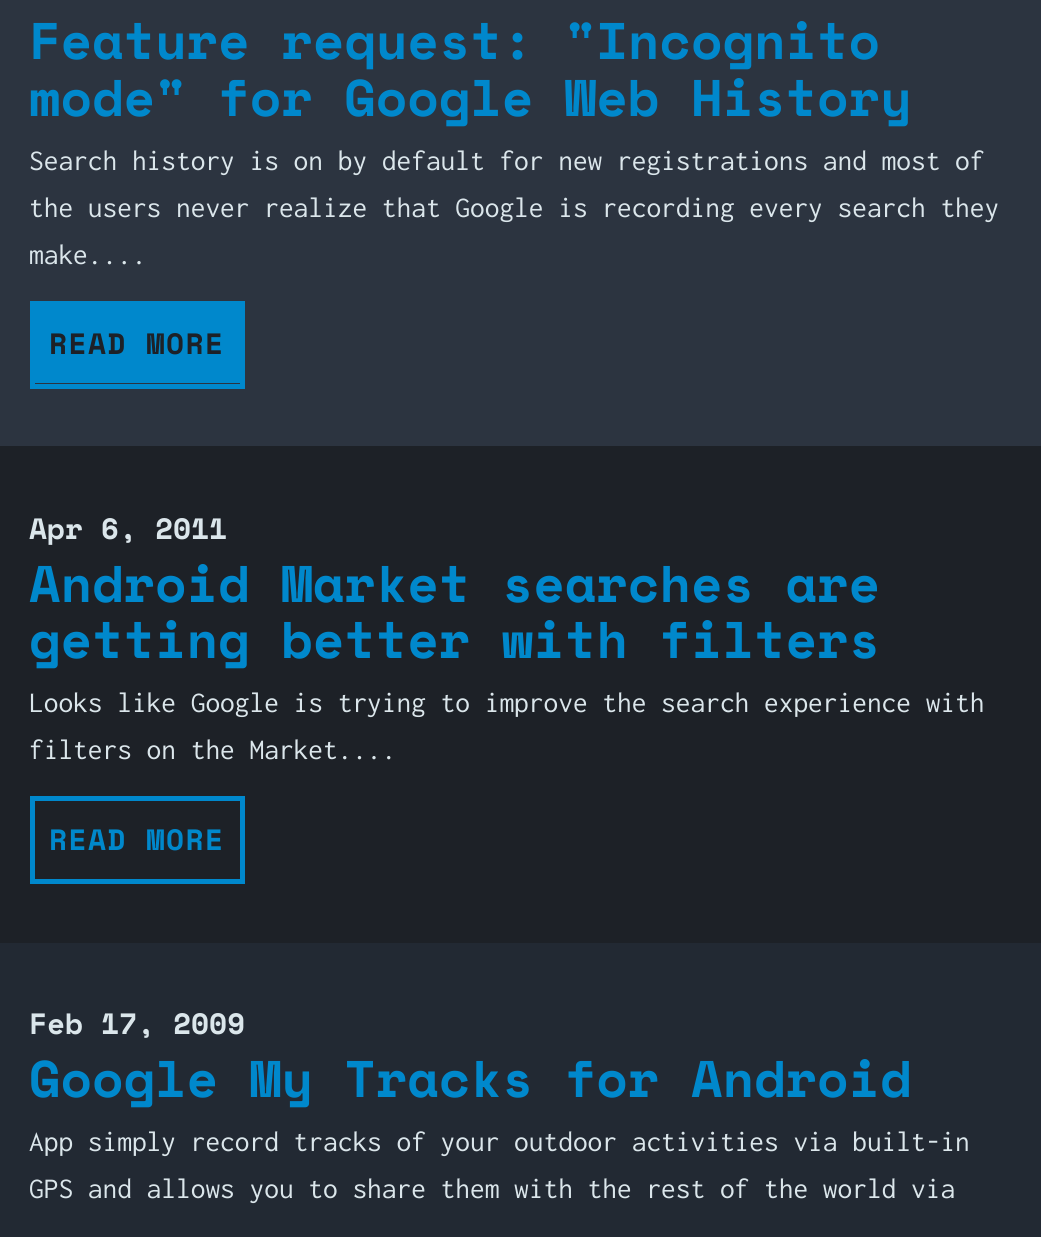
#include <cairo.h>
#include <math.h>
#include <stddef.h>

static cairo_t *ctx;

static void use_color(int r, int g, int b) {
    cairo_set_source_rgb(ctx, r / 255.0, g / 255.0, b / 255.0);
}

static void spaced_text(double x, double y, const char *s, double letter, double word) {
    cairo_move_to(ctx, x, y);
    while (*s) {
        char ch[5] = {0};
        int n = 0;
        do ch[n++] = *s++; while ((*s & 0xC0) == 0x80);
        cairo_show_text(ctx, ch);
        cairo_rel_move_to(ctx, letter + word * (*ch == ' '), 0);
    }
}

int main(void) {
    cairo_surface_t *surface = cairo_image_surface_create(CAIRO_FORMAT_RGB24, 1041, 1237);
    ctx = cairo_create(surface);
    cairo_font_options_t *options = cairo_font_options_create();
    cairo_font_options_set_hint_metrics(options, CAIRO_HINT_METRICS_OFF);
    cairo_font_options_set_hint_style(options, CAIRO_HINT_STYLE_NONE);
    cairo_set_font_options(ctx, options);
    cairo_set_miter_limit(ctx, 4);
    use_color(34, 41, 51);
    cairo_paint(ctx);
    use_color(44, 52, 64);
    cairo_rectangle(ctx, 0, 0, 1041, 446);
    cairo_fill(ctx);
    cairo_select_font_face(ctx, "Space Mono", CAIRO_FONT_SLANT_NORMAL, CAIRO_FONT_WEIGHT_BOLD);
    cairo_set_font_size(ctx, 51.5);
    use_color(0, 136, 204);
    cairo_move_to(ctx, 29, 59);
    cairo_show_text(ctx, "Feature request: \"Incognito");
    cairo_move_to(ctx, 29, 116);
    cairo_show_text(ctx, "mode\" for Google Web History");
    cairo_select_font_face(ctx, "Inconsolata", CAIRO_FONT_SLANT_NORMAL, CAIRO_FONT_WEIGHT_NORMAL);
    cairo_set_font_size(ctx, 29.4);
    use_color(219, 230, 235);
    cairo_move_to(ctx, 29, 170);
    cairo_show_text(ctx, "Search history is on by default for new registrations and most of");
    cairo_move_to(ctx, 29, 217);
    cairo_show_text(ctx, "the users never realize that Google is recording every search they");
    cairo_move_to(ctx, 29, 264);
    cairo_show_text(ctx, "make....");
    use_color(0, 136, 204);
    cairo_rectangle(ctx, 35, 306, 205, 77);
    cairo_fill(ctx);
    cairo_rectangle(ctx, 32.5, 303.5, 210, 83);
    cairo_set_line_width(ctx, 5);
    cairo_stroke(ctx);
    cairo_select_font_face(ctx, "Space Mono", CAIRO_FONT_SLANT_NORMAL, CAIRO_FONT_WEIGHT_BOLD);
    use_color(29, 33, 39);
    spaced_text(49, 354, "READ MORE", 1.5, 0);
    cairo_rectangle(ctx, 0, 446, 1041, 497);
    cairo_fill(ctx);
    use_color(219, 230, 235);
    cairo_move_to(ctx, 29, 539);
    cairo_show_text(ctx, "Apr 6, 2011");
    cairo_set_font_size(ctx, 51.5);
    use_color(0, 136, 204);
    cairo_move_to(ctx, 29, 602);
    cairo_show_text(ctx, "Android Market searches are");
    cairo_move_to(ctx, 29, 658);
    cairo_show_text(ctx, "getting better with filters");
    cairo_select_font_face(ctx, "Inconsolata", CAIRO_FONT_SLANT_NORMAL, CAIRO_FONT_WEIGHT_NORMAL);
    cairo_set_font_size(ctx, 29.4);
    use_color(219, 230, 235);
    cairo_move_to(ctx, 29, 712);
    cairo_show_text(ctx, "Looks like Google is trying to improve the search experience with");
    cairo_move_to(ctx, 29, 759);
    cairo_show_text(ctx, "filters on the Market....");
    cairo_rectangle(ctx, 32.5, 798.5, 210, 83);
    use_color(0, 136, 204);
    cairo_stroke(ctx);
    cairo_select_font_face(ctx, "Space Mono", CAIRO_FONT_SLANT_NORMAL, CAIRO_FONT_WEIGHT_BOLD);
    spaced_text(49, 850, "READ MORE", 1.5, 0);
    use_color(219, 230, 235);
    cairo_move_to(ctx, 29, 1034);
    cairo_show_text(ctx, "Feb 17, 2009");
    cairo_set_font_size(ctx, 51.5);
    use_color(0, 136, 204);
    cairo_move_to(ctx, 29, 1097);
    cairo_show_text(ctx, "Google My Tracks for Android");
    cairo_select_font_face(ctx, "Inconsolata", CAIRO_FONT_SLANT_NORMAL, CAIRO_FONT_WEIGHT_NORMAL);
    cairo_set_font_size(ctx, 29.4);
    use_color(219, 230, 235);
    cairo_move_to(ctx, 29, 1151);
    cairo_show_text(ctx, "App simply record tracks of your outdoor activities via built-in");
    cairo_move_to(ctx, 29, 1198);
    cairo_show_text(ctx, "GPS and allows you to share them with the rest of the world via");
    cairo_surface_write_to_png(surface, "result.png");
    cairo_font_options_destroy(options);
    cairo_destroy(ctx);
    cairo_surface_destroy(surface);
    return 0;
}
